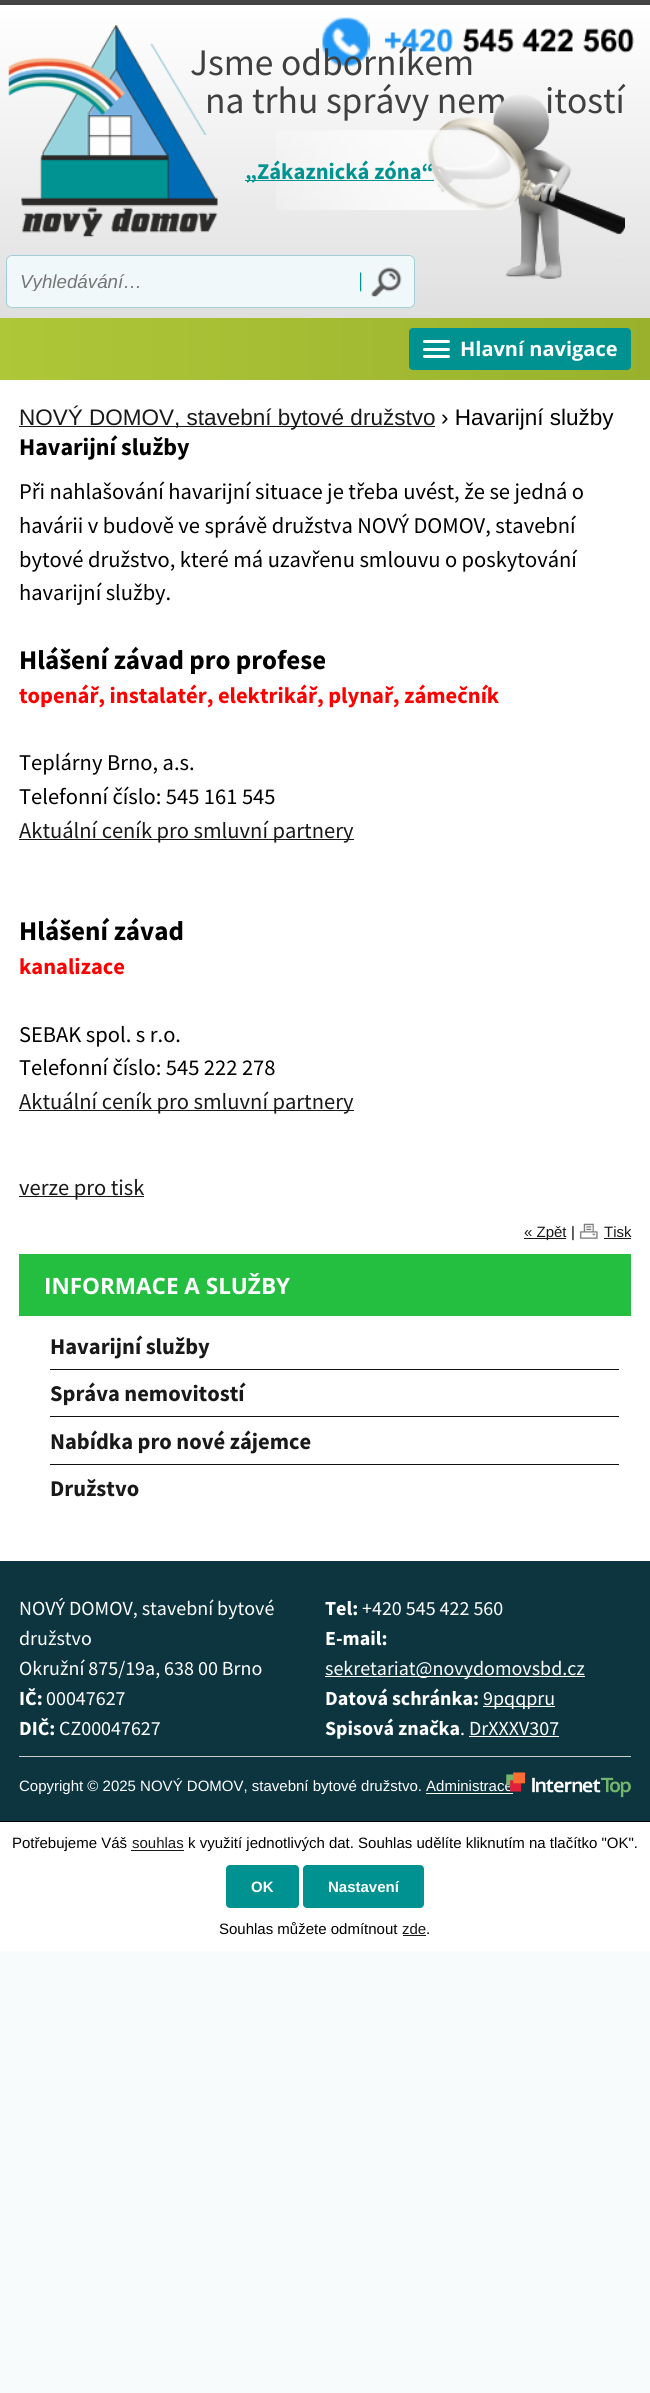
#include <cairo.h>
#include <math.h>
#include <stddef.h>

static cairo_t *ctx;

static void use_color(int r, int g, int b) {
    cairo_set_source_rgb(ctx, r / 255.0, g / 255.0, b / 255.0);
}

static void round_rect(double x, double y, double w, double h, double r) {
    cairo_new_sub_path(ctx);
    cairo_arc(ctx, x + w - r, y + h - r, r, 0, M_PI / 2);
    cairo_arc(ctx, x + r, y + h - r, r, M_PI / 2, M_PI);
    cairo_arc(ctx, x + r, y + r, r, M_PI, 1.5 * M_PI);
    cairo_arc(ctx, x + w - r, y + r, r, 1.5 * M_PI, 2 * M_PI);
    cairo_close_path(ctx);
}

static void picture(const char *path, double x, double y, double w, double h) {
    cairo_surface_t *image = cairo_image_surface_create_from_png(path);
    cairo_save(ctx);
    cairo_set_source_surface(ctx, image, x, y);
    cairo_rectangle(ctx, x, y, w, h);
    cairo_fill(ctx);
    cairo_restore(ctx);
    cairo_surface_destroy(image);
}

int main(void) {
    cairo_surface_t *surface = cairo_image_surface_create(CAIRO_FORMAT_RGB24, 650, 2393);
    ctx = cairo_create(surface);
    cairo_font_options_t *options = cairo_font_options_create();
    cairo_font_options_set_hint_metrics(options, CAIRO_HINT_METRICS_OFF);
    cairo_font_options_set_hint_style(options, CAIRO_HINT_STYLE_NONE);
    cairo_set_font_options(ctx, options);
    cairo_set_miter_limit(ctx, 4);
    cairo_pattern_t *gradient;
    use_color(247, 251, 252);
    cairo_paint(ctx);
    use_color(255, 255, 255);
    cairo_rectangle(ctx, 0, 380, 650, 1181);
    cairo_fill(ctx);
    use_color(68, 68, 68);
    cairo_rectangle(ctx, 0, 0, 650, 5);
    cairo_fill(ctx);
    gradient = cairo_pattern_create_linear(0, 5, 0, 318);
    cairo_pattern_add_color_stop_rgba(gradient, 0, 1, 1, 1, 1);
    cairo_pattern_add_color_stop_rgba(gradient, 1, 0.875, 0.875, 0.875, 1);
    cairo_set_source(ctx, gradient);
    cairo_pattern_destroy(gradient);
    cairo_rectangle(ctx, 0, 5, 650, 313);
    cairo_fill(ctx);
    picture("img3.png", 150, 43, 57, 92);
    picture("img2.png", 322, 17, 312, 50);
    cairo_select_font_face(ctx, "Source Sans Pro", CAIRO_FONT_SLANT_NORMAL, CAIRO_FONT_WEIGHT_NORMAL);
    cairo_set_font_size(ctx, 37.5);
    use_color(64, 64, 65);
    cairo_move_to(ctx, 190, 75);
    cairo_show_text(ctx, "Jsme odborníkem");
    cairo_move_to(ctx, 205, 113);
    cairo_show_text(ctx, "na trhu správy nem");
    picture("img1.png", 8, 25, 210, 212);
    cairo_move_to(ctx, 545, 113);
    cairo_show_text(ctx, "itostí");
    picture("img4.png", 276, 94, 349, 185);
    use_color(0, 147, 145);
    cairo_rectangle(ctx, 245, 180, 189, 1);
    cairo_fill(ctx);
    cairo_select_font_face(ctx, "Source Sans Pro", CAIRO_FONT_SLANT_NORMAL, CAIRO_FONT_WEIGHT_BOLD);
    cairo_set_font_size(ctx, 22.5);
    cairo_move_to(ctx, 245, 179);
    cairo_show_text(ctx, "„Zákaznická zóna“");
    use_color(240, 248, 250);
    round_rect(6, 255, 409, 53, 6);
    cairo_fill(ctx);
    picture("img5.png", 360, 272, 2, 20);
    round_rect(6.5, 255.5, 408, 52, 5.5);
    use_color(163, 206, 213);
    cairo_set_line_width(ctx, 1);
    cairo_stroke(ctx);
    cairo_save(ctx);
    cairo_rectangle(ctx, 20, 270, 328, 21);
    cairo_clip(ctx);
    cairo_select_font_face(ctx, "Liberation Sans", CAIRO_FONT_SLANT_ITALIC, CAIRO_FONT_WEIGHT_NORMAL);
    cairo_set_font_size(ctx, 18.75);
    use_color(117, 117, 117);
    cairo_move_to(ctx, 20, 288);
    cairo_show_text(ctx, "Vyhledávání…");
    cairo_restore(ctx);
    picture("img6.png", 371, 267, 31, 30);
    gradient = cairo_pattern_create_linear(0, 349, 650, 349);
    cairo_pattern_add_color_stop_rgba(gradient, 0, 0.682, 0.78, 0.22, 1);
    cairo_pattern_add_color_stop_rgba(gradient, 1, 0.604, 0.694, 0.176, 1);
    cairo_set_source(ctx, gradient);
    cairo_pattern_destroy(gradient);
    cairo_rectangle(ctx, 0, 318, 650, 62);
    cairo_fill(ctx);
    use_color(0, 146, 144);
    round_rect(409, 328, 222, 42, 4);
    cairo_fill(ctx);
    cairo_save(ctx);
    round_rect(409, 328, 222, 42, 4);
    cairo_clip(ctx);
    cairo_rectangle(ctx, 410, 329, 220, 40);
    cairo_fill(ctx);
    cairo_restore(ctx);
    use_color(255, 255, 255);
    round_rect(423, 340, 27, 3, 1.5);
    cairo_fill(ctx);
    cairo_select_font_face(ctx, "Open Sans", CAIRO_FONT_SLANT_NORMAL, CAIRO_FONT_WEIGHT_BOLD);
    cairo_set_font_size(ctx, 20);
    cairo_move_to(ctx, 460, 356);
    cairo_show_text(ctx, "Hlavní navigace");
    round_rect(423, 348, 27, 3, 1.5);
    cairo_fill(ctx);
    round_rect(423, 355, 27, 3, 1.5);
    cairo_fill(ctx);
    use_color(25, 25, 25);
    cairo_rectangle(ctx, 19, 426, 416, 1);
    cairo_fill(ctx);
    cairo_select_font_face(ctx, "Liberation Sans", CAIRO_FONT_SLANT_NORMAL, CAIRO_FONT_WEIGHT_NORMAL);
    cairo_set_font_size(ctx, 22.5);
    cairo_move_to(ctx, 19, 425);
    cairo_show_text(ctx, "NOVÝ DOMOV, stavební bytové družstvo");
    use_color(0, 0, 0);
    cairo_move_to(ctx, 441, 425);
    cairo_show_text(ctx, "› Havarijní služby");
    cairo_select_font_face(ctx, "Source Sans Pro", CAIRO_FONT_SLANT_NORMAL, CAIRO_FONT_WEIGHT_BOLD);
    cairo_set_font_size(ctx, 24);
    cairo_move_to(ctx, 19, 455);
    cairo_show_text(ctx, "Havarijní služby");
    cairo_select_font_face(ctx, "Source Sans Pro", CAIRO_FONT_SLANT_NORMAL, CAIRO_FONT_WEIGHT_NORMAL);
    cairo_set_font_size(ctx, 22.5);
    cairo_move_to(ctx, 19, 499);
    cairo_show_text(ctx, "Při nahlašování havarijní situace je třeba uvést, že se jedná o");
    cairo_move_to(ctx, 19, 533);
    cairo_show_text(ctx, "havárii v budově ve správě družstva NOVÝ DOMOV, stavební");
    cairo_move_to(ctx, 19, 567);
    cairo_show_text(ctx, "bytové družstvo, které má uzavřenu smlouvu o poskytování");
    cairo_move_to(ctx, 19, 600);
    cairo_show_text(ctx, "havarijní služby.");
    cairo_select_font_face(ctx, "Source Sans Pro", CAIRO_FONT_SLANT_NORMAL, CAIRO_FONT_WEIGHT_BOLD);
    cairo_set_font_size(ctx, 27);
    cairo_move_to(ctx, 19, 669);
    cairo_show_text(ctx, "Hlášení závad pro profese");
    cairo_set_font_size(ctx, 22.5);
    use_color(255, 0, 0);
    cairo_move_to(ctx, 19, 703);
    cairo_show_text(ctx, "topenář, instalatér, elektrikář, plynař, zámečník");
    cairo_select_font_face(ctx, "Source Sans Pro", CAIRO_FONT_SLANT_NORMAL, CAIRO_FONT_WEIGHT_NORMAL);
    use_color(0, 0, 0);
    cairo_move_to(ctx, 19, 770);
    cairo_show_text(ctx, "Teplárny Brno, a.s.");
    cairo_move_to(ctx, 19, 804);
    cairo_show_text(ctx, "Telefonní číslo: 545 161 545");
    use_color(25, 25, 25);
    cairo_rectangle(ctx, 19, 839, 335, 1);
    cairo_fill(ctx);
    cairo_move_to(ctx, 19, 838);
    cairo_show_text(ctx, "Aktuální ceník pro smluvní partnery");
    cairo_select_font_face(ctx, "Source Sans Pro", CAIRO_FONT_SLANT_NORMAL, CAIRO_FONT_WEIGHT_BOLD);
    cairo_set_font_size(ctx, 27);
    use_color(0, 0, 0);
    cairo_move_to(ctx, 19, 940);
    cairo_show_text(ctx, "Hlášení závad");
    cairo_set_font_size(ctx, 22.5);
    use_color(255, 0, 0);
    cairo_move_to(ctx, 19, 974);
    cairo_show_text(ctx, "kanalizace");
    cairo_select_font_face(ctx, "Source Sans Pro", CAIRO_FONT_SLANT_NORMAL, CAIRO_FONT_WEIGHT_NORMAL);
    use_color(0, 0, 0);
    cairo_move_to(ctx, 19, 1042);
    cairo_show_text(ctx, "SEBAK spol. s r.o.");
    cairo_move_to(ctx, 19, 1075);
    cairo_show_text(ctx, "Telefonní číslo: 545 222 278");
    use_color(25, 25, 25);
    cairo_rectangle(ctx, 19, 1110, 335, 1);
    cairo_fill(ctx);
    cairo_move_to(ctx, 19, 1109);
    cairo_show_text(ctx, "Aktuální ceník pro smluvní partnery");
    cairo_rectangle(ctx, 19, 1196, 125, 1);
    cairo_fill(ctx);
    cairo_move_to(ctx, 19, 1195);
    cairo_show_text(ctx, "verze pro tisk");
    cairo_rectangle(ctx, 524, 1238, 42, 1);
    cairo_fill(ctx);
    cairo_select_font_face(ctx, "Liberation Sans", CAIRO_FONT_SLANT_NORMAL, CAIRO_FONT_WEIGHT_NORMAL);
    cairo_set_font_size(ctx, 15);
    cairo_move_to(ctx, 524, 1237);
    cairo_show_text(ctx, "« Zpět");
    use_color(0, 0, 0);
    cairo_move_to(ctx, 571, 1237);
    cairo_show_text(ctx, "|");
    picture("img7.png", 579, 1223, 19, 16);
    use_color(25, 25, 25);
    cairo_move_to(ctx, 604, 1237);
    cairo_show_text(ctx, "Tisk");
    cairo_rectangle(ctx, 604, 1238, 27, 1);
    cairo_fill(ctx);
    use_color(36, 190, 65);
    cairo_rectangle(ctx, 19, 1254, 612, 62);
    cairo_fill(ctx);
    cairo_select_font_face(ctx, "Open Sans", CAIRO_FONT_SLANT_NORMAL, CAIRO_FONT_WEIGHT_BOLD);
    cairo_set_font_size(ctx, 22.5);
    use_color(255, 255, 255);
    cairo_move_to(ctx, 44, 1294);
    cairo_show_text(ctx, "INFORMACE A SLUŽBY");
    use_color(17, 17, 17);
    cairo_rectangle(ctx, 50, 1369, 569, 1);
    cairo_fill(ctx);
    cairo_select_font_face(ctx, "Source Sans Pro", CAIRO_FONT_SLANT_NORMAL, CAIRO_FONT_WEIGHT_BOLD);
    use_color(25, 25, 25);
    cairo_move_to(ctx, 50, 1354);
    cairo_show_text(ctx, "Havarijní služby");
    use_color(17, 17, 17);
    cairo_rectangle(ctx, 50, 1416, 569, 1);
    cairo_fill(ctx);
    use_color(25, 25, 25);
    cairo_move_to(ctx, 50, 1401);
    cairo_show_text(ctx, "Správa nemovitostí");
    use_color(17, 17, 17);
    cairo_rectangle(ctx, 50, 1464, 569, 1);
    cairo_fill(ctx);
    use_color(25, 25, 25);
    cairo_move_to(ctx, 50, 1449);
    cairo_show_text(ctx, "Nabídka pro nové zájemce");
    cairo_move_to(ctx, 50, 1496);
    cairo_show_text(ctx, "Družstvo");
    use_color(12, 53, 64);
    cairo_rectangle(ctx, 0, 1561, 650, 260);
    cairo_fill(ctx);
    cairo_select_font_face(ctx, "Source Sans Pro", CAIRO_FONT_SLANT_NORMAL, CAIRO_FONT_WEIGHT_NORMAL);
    cairo_set_font_size(ctx, 20);
    use_color(255, 255, 255);
    cairo_move_to(ctx, 19, 1615);
    cairo_show_text(ctx, "NOVÝ DOMOV, stavební bytové");
    cairo_move_to(ctx, 19, 1645);
    cairo_show_text(ctx, "družstvo");
    cairo_move_to(ctx, 19, 1675);
    cairo_show_text(ctx, "Okružní 875/19a, 638 00 Brno");
    cairo_select_font_face(ctx, "Source Sans Pro", CAIRO_FONT_SLANT_NORMAL, CAIRO_FONT_WEIGHT_BOLD);
    cairo_move_to(ctx, 325, 1615);
    cairo_show_text(ctx, "Tel:");
    cairo_select_font_face(ctx, "Source Sans Pro", CAIRO_FONT_SLANT_NORMAL, CAIRO_FONT_WEIGHT_NORMAL);
    cairo_move_to(ctx, 362, 1615);
    cairo_show_text(ctx, "+420 545 422 560");
    cairo_select_font_face(ctx, "Source Sans Pro", CAIRO_FONT_SLANT_NORMAL, CAIRO_FONT_WEIGHT_BOLD);
    cairo_move_to(ctx, 325, 1645);
    cairo_show_text(ctx, "E-mail:");
    cairo_rectangle(ctx, 325, 1676, 260, 1);
    cairo_fill(ctx);
    cairo_select_font_face(ctx, "Source Sans Pro", CAIRO_FONT_SLANT_NORMAL, CAIRO_FONT_WEIGHT_NORMAL);
    cairo_move_to(ctx, 325, 1675);
    cairo_show_text(ctx, "sekretariat@novydomovsbd.cz");
    cairo_select_font_face(ctx, "Source Sans Pro", CAIRO_FONT_SLANT_NORMAL, CAIRO_FONT_WEIGHT_BOLD);
    cairo_move_to(ctx, 19, 1705);
    cairo_show_text(ctx, "IČ:");
    cairo_select_font_face(ctx, "Source Sans Pro", CAIRO_FONT_SLANT_NORMAL, CAIRO_FONT_WEIGHT_NORMAL);
    cairo_move_to(ctx, 46, 1705);
    cairo_show_text(ctx, "00047627");
    cairo_select_font_face(ctx, "Source Sans Pro", CAIRO_FONT_SLANT_NORMAL, CAIRO_FONT_WEIGHT_BOLD);
    cairo_move_to(ctx, 19, 1735);
    cairo_show_text(ctx, "DIČ:");
    cairo_select_font_face(ctx, "Source Sans Pro", CAIRO_FONT_SLANT_NORMAL, CAIRO_FONT_WEIGHT_NORMAL);
    cairo_move_to(ctx, 59, 1735);
    cairo_show_text(ctx, "CZ00047627");
    cairo_select_font_face(ctx, "Source Sans Pro", CAIRO_FONT_SLANT_NORMAL, CAIRO_FONT_WEIGHT_BOLD);
    cairo_move_to(ctx, 325, 1705);
    cairo_show_text(ctx, "Datová schránka:");
    cairo_rectangle(ctx, 483, 1706, 72, 1);
    cairo_fill(ctx);
    cairo_select_font_face(ctx, "Source Sans Pro", CAIRO_FONT_SLANT_NORMAL, CAIRO_FONT_WEIGHT_NORMAL);
    cairo_move_to(ctx, 483, 1705);
    cairo_show_text(ctx, "9pqqpru");
    cairo_select_font_face(ctx, "Source Sans Pro", CAIRO_FONT_SLANT_NORMAL, CAIRO_FONT_WEIGHT_BOLD);
    cairo_move_to(ctx, 325, 1735);
    cairo_show_text(ctx, "Spisová značka");
    cairo_select_font_face(ctx, "Source Sans Pro", CAIRO_FONT_SLANT_NORMAL, CAIRO_FONT_WEIGHT_NORMAL);
    cairo_move_to(ctx, 460, 1735);
    cairo_show_text(ctx, ". DrXXXV307");
    cairo_rectangle(ctx, 469, 1736, 90, 1);
    cairo_fill(ctx);
    use_color(204, 204, 204);
    cairo_rectangle(ctx, 19, 1756, 612, 1);
    cairo_fill(ctx);
    cairo_select_font_face(ctx, "Liberation Sans", CAIRO_FONT_SLANT_NORMAL, CAIRO_FONT_WEIGHT_NORMAL);
    cairo_set_font_size(ctx, 15);
    use_color(255, 255, 255);
    cairo_move_to(ctx, 19, 1791);
    cairo_show_text(ctx, "Copyright © 2025 NOVÝ DOMOV, stavební bytové družstvo. Administrace");
    cairo_rectangle(ctx, 426, 1793, 87, 1);
    cairo_fill(ctx);
    picture("img8.png", 506, 1772, 126, 26);
    cairo_rectangle(ctx, 0, 1822, 650, 129);
    cairo_fill(ctx);
    use_color(0, 0, 0);
    cairo_rectangle(ctx, 0, 1821, 650, 1);
    cairo_fill(ctx);
    cairo_move_to(ctx, 12, 1848);
    cairo_show_text(ctx, "Potřebujeme Váš");
    use_color(25, 25, 25);
    cairo_move_to(ctx, 132, 1848);
    cairo_show_text(ctx, "souhlas");
    cairo_rectangle(ctx, 131, 1850, 53, 1);
    cairo_fill(ctx);
    use_color(0, 0, 0);
    cairo_move_to(ctx, 188, 1848);
    cairo_show_text(ctx, "k využití jednotlivých dat. Souhlas udělíte kliknutím na tlačítko \"OK\".");
    use_color(0, 146, 144);
    round_rect(226, 1865, 73, 43, 4);
    cairo_fill(ctx);
    cairo_select_font_face(ctx, "Liberation Sans", CAIRO_FONT_SLANT_NORMAL, CAIRO_FONT_WEIGHT_BOLD);
    use_color(255, 255, 255);
    cairo_move_to(ctx, 251, 1892);
    cairo_show_text(ctx, "OK");
    use_color(0, 146, 144);
    round_rect(303, 1865, 121, 43, 4);
    cairo_fill(ctx);
    use_color(255, 255, 255);
    cairo_move_to(ctx, 328, 1892);
    cairo_show_text(ctx, "Nastavení");
    cairo_select_font_face(ctx, "Liberation Sans", CAIRO_FONT_SLANT_NORMAL, CAIRO_FONT_WEIGHT_NORMAL);
    use_color(0, 0, 0);
    cairo_move_to(ctx, 219, 1934);
    cairo_show_text(ctx, "Souhlas můžete odmítnout");
    use_color(25, 25, 25);
    cairo_move_to(ctx, 402, 1934);
    cairo_show_text(ctx, "zde");
    cairo_rectangle(ctx, 403, 1935, 23, 1);
    cairo_fill(ctx);
    use_color(0, 0, 0);
    cairo_move_to(ctx, 426, 1934);
    cairo_show_text(ctx, ".");
    cairo_surface_write_to_png(surface, "result.png");
    cairo_font_options_destroy(options);
    cairo_destroy(ctx);
    cairo_surface_destroy(surface);
    return 0;
}
